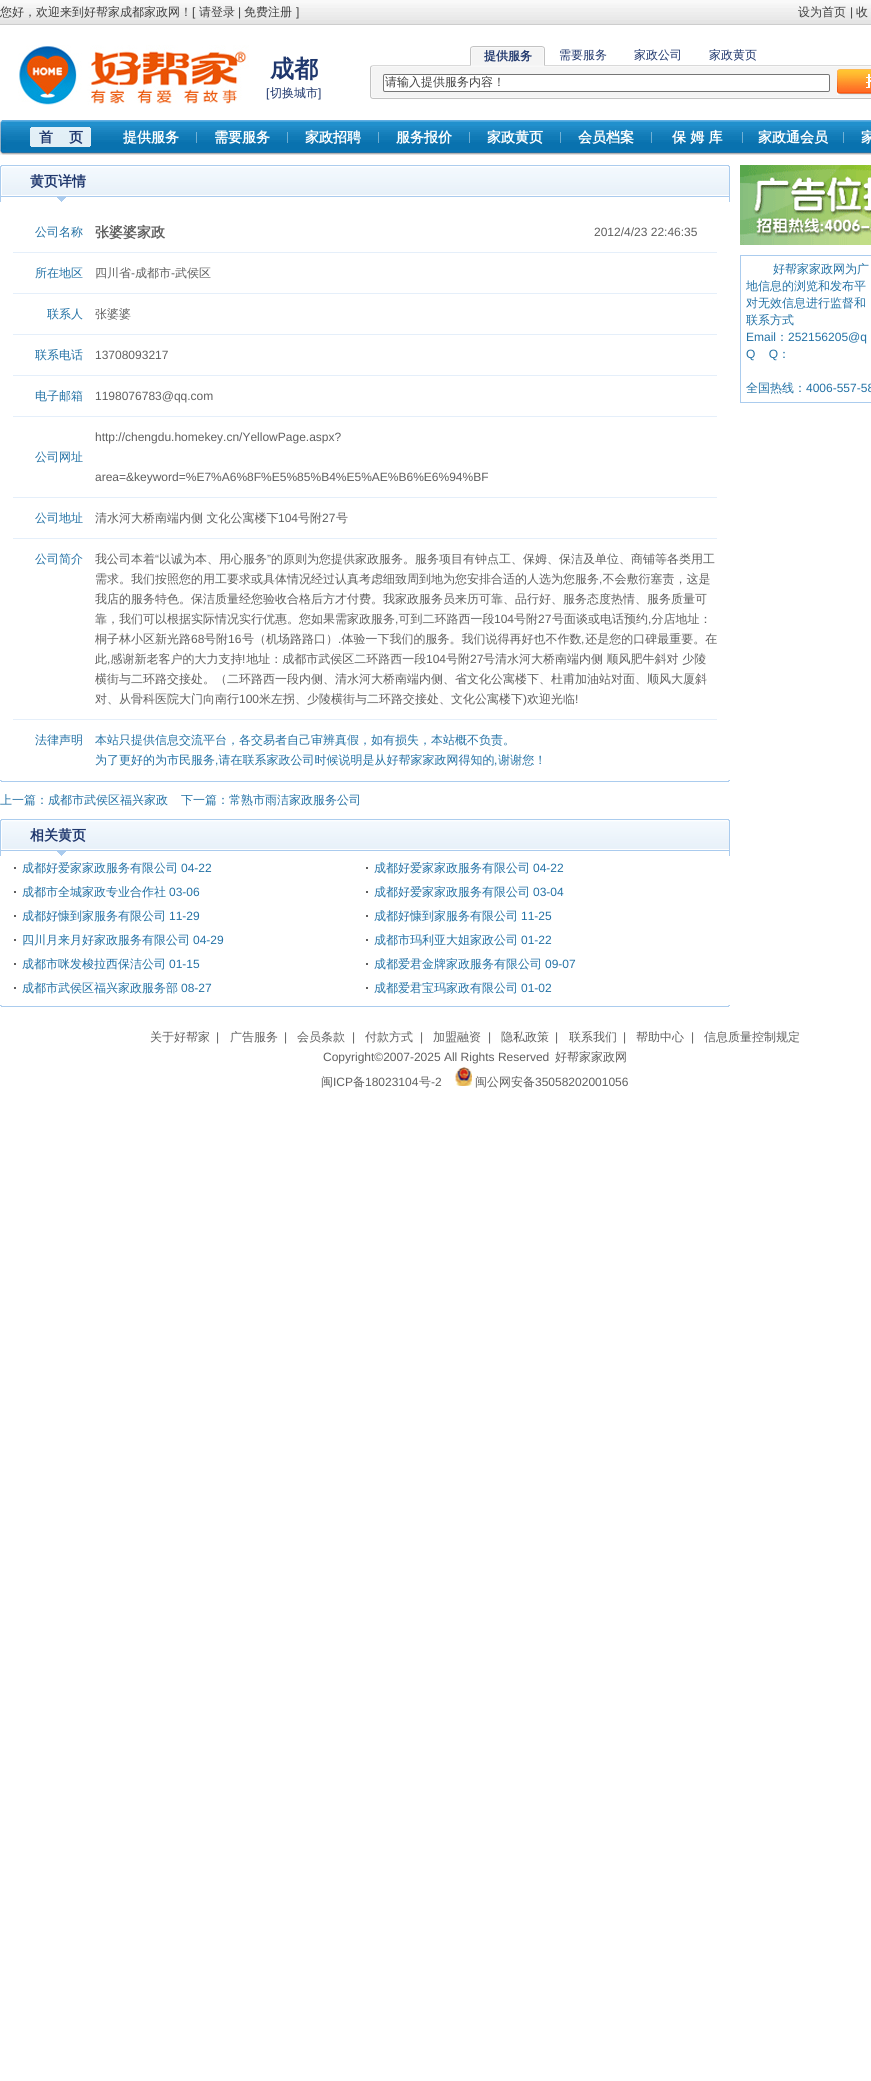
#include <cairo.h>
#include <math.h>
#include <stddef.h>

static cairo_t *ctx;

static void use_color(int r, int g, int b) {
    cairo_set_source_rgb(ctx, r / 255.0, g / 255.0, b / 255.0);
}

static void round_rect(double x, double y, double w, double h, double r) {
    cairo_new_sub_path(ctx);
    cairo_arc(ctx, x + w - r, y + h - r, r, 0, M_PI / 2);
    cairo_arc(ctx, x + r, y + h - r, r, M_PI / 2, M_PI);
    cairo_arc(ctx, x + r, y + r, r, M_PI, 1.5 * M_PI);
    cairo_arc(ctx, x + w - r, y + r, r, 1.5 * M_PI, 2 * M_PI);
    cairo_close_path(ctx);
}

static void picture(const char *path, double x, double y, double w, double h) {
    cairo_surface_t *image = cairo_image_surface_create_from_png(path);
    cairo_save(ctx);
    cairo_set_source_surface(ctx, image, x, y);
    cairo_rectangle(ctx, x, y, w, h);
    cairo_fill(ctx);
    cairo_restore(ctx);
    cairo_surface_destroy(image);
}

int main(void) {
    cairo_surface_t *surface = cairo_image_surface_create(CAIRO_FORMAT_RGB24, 871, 2081);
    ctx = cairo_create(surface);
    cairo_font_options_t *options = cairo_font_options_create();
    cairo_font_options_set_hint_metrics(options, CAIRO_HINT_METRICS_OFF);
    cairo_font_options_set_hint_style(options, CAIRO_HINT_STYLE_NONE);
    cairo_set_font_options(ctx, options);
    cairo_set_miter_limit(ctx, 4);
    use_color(255, 255, 255);
    cairo_paint(ctx);
    picture("img1.png", 0, 0, 871, 25);
    cairo_select_font_face(ctx, "WenQuanYi Zen Hei Medium", CAIRO_FONT_SLANT_NORMAL, CAIRO_FONT_WEIGHT_NORMAL);
    cairo_set_font_size(ctx, 12);
    use_color(64, 64, 64);
    cairo_move_to(ctx, 0, 16);
    cairo_show_text(ctx, "您好，欢迎来到好帮家成都家政网！");
    cairo_select_font_face(ctx, "Liberation Sans", CAIRO_FONT_SLANT_NORMAL, CAIRO_FONT_WEIGHT_NORMAL);
    cairo_move_to(ctx, 192, 16);
    cairo_show_text(ctx, "[");
    cairo_select_font_face(ctx, "WenQuanYi Zen Hei Medium", CAIRO_FONT_SLANT_NORMAL, CAIRO_FONT_WEIGHT_NORMAL);
    cairo_move_to(ctx, 199, 16);
    cairo_show_text(ctx, "请登录");
    cairo_select_font_face(ctx, "Liberation Sans", CAIRO_FONT_SLANT_NORMAL, CAIRO_FONT_WEIGHT_NORMAL);
    cairo_move_to(ctx, 238, 16);
    cairo_show_text(ctx, "|");
    cairo_select_font_face(ctx, "WenQuanYi Zen Hei Medium", CAIRO_FONT_SLANT_NORMAL, CAIRO_FONT_WEIGHT_NORMAL);
    cairo_move_to(ctx, 244, 16);
    cairo_show_text(ctx, "免费注册");
    cairo_select_font_face(ctx, "Liberation Sans", CAIRO_FONT_SLANT_NORMAL, CAIRO_FONT_WEIGHT_NORMAL);
    cairo_move_to(ctx, 296, 16);
    cairo_show_text(ctx, "]");
    cairo_select_font_face(ctx, "WenQuanYi Zen Hei Medium", CAIRO_FONT_SLANT_NORMAL, CAIRO_FONT_WEIGHT_NORMAL);
    cairo_move_to(ctx, 798, 16);
    cairo_show_text(ctx, "设为首页");
    cairo_select_font_face(ctx, "Liberation Sans", CAIRO_FONT_SLANT_NORMAL, CAIRO_FONT_WEIGHT_NORMAL);
    cairo_move_to(ctx, 850, 16);
    cairo_show_text(ctx, "|");
    cairo_select_font_face(ctx, "WenQuanYi Zen Hei Medium", CAIRO_FONT_SLANT_NORMAL, CAIRO_FONT_WEIGHT_NORMAL);
    cairo_move_to(ctx, 856, 16);
    cairo_show_text(ctx, "收");
    picture("img2.png", 18, 45, 231, 60);
    cairo_select_font_face(ctx, "WenQuanYi Zen Hei", CAIRO_FONT_SLANT_NORMAL, CAIRO_FONT_WEIGHT_BOLD);
    cairo_set_font_size(ctx, 24);
    use_color(31, 55, 109);
    cairo_move_to(ctx, 270, 77);
    cairo_show_text(ctx, "成都");
    cairo_select_font_face(ctx, "Liberation Sans", CAIRO_FONT_SLANT_NORMAL, CAIRO_FONT_WEIGHT_NORMAL);
    cairo_set_font_size(ctx, 12);
    cairo_move_to(ctx, 266, 97);
    cairo_show_text(ctx, "[");
    cairo_select_font_face(ctx, "WenQuanYi Zen Hei Medium", CAIRO_FONT_SLANT_NORMAL, CAIRO_FONT_WEIGHT_NORMAL);
    cairo_move_to(ctx, 270, 97);
    cairo_show_text(ctx, "切换城市");
    cairo_select_font_face(ctx, "Liberation Sans", CAIRO_FONT_SLANT_NORMAL, CAIRO_FONT_WEIGHT_NORMAL);
    cairo_move_to(ctx, 318, 97);
    cairo_show_text(ctx, "]");
    picture("img4.png", 370, 65, 501, 34);
    picture("img3.png", 470, 46, 75, 20);
    cairo_select_font_face(ctx, "WenQuanYi Zen Hei", CAIRO_FONT_SLANT_NORMAL, CAIRO_FONT_WEIGHT_BOLD);
    cairo_move_to(ctx, 484, 60);
    cairo_show_text(ctx, "提供服务");
    cairo_select_font_face(ctx, "WenQuanYi Zen Hei Medium", CAIRO_FONT_SLANT_NORMAL, CAIRO_FONT_WEIGHT_NORMAL);
    cairo_move_to(ctx, 559, 59);
    cairo_show_text(ctx, "需要服务");
    cairo_move_to(ctx, 634, 59);
    cairo_show_text(ctx, "家政公司");
    cairo_move_to(ctx, 709, 59);
    cairo_show_text(ctx, "家政黄页");
    use_color(255, 255, 255);
    round_rect(383.5, 74.5, 446, 17, 1.5);
    cairo_fill_preserve(ctx);
    use_color(118, 118, 118);
    cairo_set_line_width(ctx, 1);
    cairo_stroke(ctx);
    use_color(64, 64, 64);
    cairo_move_to(ctx, 385, 86);
    cairo_show_text(ctx, "请输入提供服务内容！");
    picture("img5.png", 837, 69, 34, 26);
    picture("img6.png", 0, 120, 871, 35);
    cairo_select_font_face(ctx, "WenQuanYi Zen Hei", CAIRO_FONT_SLANT_NORMAL, CAIRO_FONT_WEIGHT_BOLD);
    cairo_set_font_size(ctx, 14);
    use_color(31, 55, 109);
    cairo_move_to(ctx, 39, 142);
    cairo_show_text(ctx, "首");
    cairo_move_to(ctx, 69, 142);
    cairo_show_text(ctx, "页");
    use_color(255, 255, 255);
    cairo_move_to(ctx, 123, 142);
    cairo_show_text(ctx, "提供服务");
    picture("img7.png", 196, 132, 1, 11);
    cairo_move_to(ctx, 214, 142);
    cairo_show_text(ctx, "需要服务");
    picture("img7.png", 287, 132, 1, 11);
    cairo_move_to(ctx, 305, 142);
    cairo_show_text(ctx, "家政招聘");
    picture("img7.png", 378, 132, 1, 11);
    cairo_move_to(ctx, 396, 142);
    cairo_show_text(ctx, "服务报价");
    picture("img7.png", 469, 132, 1, 11);
    cairo_move_to(ctx, 487, 142);
    cairo_show_text(ctx, "家政黄页");
    picture("img7.png", 560, 132, 1, 11);
    cairo_move_to(ctx, 578, 142);
    cairo_show_text(ctx, "会员档案");
    picture("img7.png", 651, 132, 1, 11);
    cairo_move_to(ctx, 672, 142);
    cairo_show_text(ctx, "保 姆 库");
    picture("img7.png", 742, 132, 1, 11);
    cairo_move_to(ctx, 758, 142);
    cairo_show_text(ctx, "家政通会员");
    picture("img7.png", 843, 132, 1, 11);
    cairo_move_to(ctx, 861, 142);
    cairo_show_text(ctx, "家");
    picture("img8.png", 0, 165, 730, 37);
    use_color(31, 55, 109);
    cairo_move_to(ctx, 30, 186);
    cairo_show_text(ctx, "黄页详情");
    cairo_select_font_face(ctx, "WenQuanYi Zen Hei Medium", CAIRO_FONT_SLANT_NORMAL, CAIRO_FONT_WEIGHT_NORMAL);
    cairo_set_font_size(ctx, 12);
    use_color(34, 113, 165);
    cairo_move_to(ctx, 35, 236);
    cairo_show_text(ctx, "公司名称");
    cairo_select_font_face(ctx, "WenQuanYi Zen Hei", CAIRO_FONT_SLANT_NORMAL, CAIRO_FONT_WEIGHT_BOLD);
    cairo_set_font_size(ctx, 14);
    use_color(95, 95, 95);
    cairo_move_to(ctx, 95, 237);
    cairo_show_text(ctx, "张婆婆家政");
    cairo_select_font_face(ctx, "Liberation Sans", CAIRO_FONT_SLANT_NORMAL, CAIRO_FONT_WEIGHT_NORMAL);
    cairo_set_font_size(ctx, 12);
    cairo_move_to(ctx, 594, 236);
    cairo_show_text(ctx, "2012/4/23 22:46:35");
    use_color(229, 239, 250);
    cairo_rectangle(ctx, 13, 252, 704, 1);
    cairo_fill(ctx);
    cairo_select_font_face(ctx, "WenQuanYi Zen Hei Medium", CAIRO_FONT_SLANT_NORMAL, CAIRO_FONT_WEIGHT_NORMAL);
    use_color(34, 113, 165);
    cairo_move_to(ctx, 35, 277);
    cairo_show_text(ctx, "所在地区");
    use_color(95, 95, 95);
    cairo_move_to(ctx, 95, 277);
    cairo_show_text(ctx, "四川省");
    cairo_select_font_face(ctx, "Liberation Sans", CAIRO_FONT_SLANT_NORMAL, CAIRO_FONT_WEIGHT_NORMAL);
    cairo_move_to(ctx, 131, 277);
    cairo_show_text(ctx, "-");
    cairo_select_font_face(ctx, "WenQuanYi Zen Hei Medium", CAIRO_FONT_SLANT_NORMAL, CAIRO_FONT_WEIGHT_NORMAL);
    cairo_move_to(ctx, 135, 277);
    cairo_show_text(ctx, "成都市");
    cairo_select_font_face(ctx, "Liberation Sans", CAIRO_FONT_SLANT_NORMAL, CAIRO_FONT_WEIGHT_NORMAL);
    cairo_move_to(ctx, 171, 277);
    cairo_show_text(ctx, "-");
    cairo_select_font_face(ctx, "WenQuanYi Zen Hei Medium", CAIRO_FONT_SLANT_NORMAL, CAIRO_FONT_WEIGHT_NORMAL);
    cairo_move_to(ctx, 175, 277);
    cairo_show_text(ctx, "武侯区");
    use_color(229, 239, 250);
    cairo_rectangle(ctx, 13, 293, 704, 1);
    cairo_fill(ctx);
    use_color(34, 113, 165);
    cairo_move_to(ctx, 47, 318);
    cairo_show_text(ctx, "联系人");
    use_color(95, 95, 95);
    cairo_move_to(ctx, 95, 318);
    cairo_show_text(ctx, "张婆婆");
    use_color(229, 239, 250);
    cairo_rectangle(ctx, 13, 334, 704, 1);
    cairo_fill(ctx);
    use_color(34, 113, 165);
    cairo_move_to(ctx, 35, 359);
    cairo_show_text(ctx, "联系电话");
    cairo_select_font_face(ctx, "Liberation Sans", CAIRO_FONT_SLANT_NORMAL, CAIRO_FONT_WEIGHT_NORMAL);
    use_color(95, 95, 95);
    cairo_move_to(ctx, 95, 359);
    cairo_show_text(ctx, "13708093217");
    use_color(229, 239, 250);
    cairo_rectangle(ctx, 13, 375, 704, 1);
    cairo_fill(ctx);
    cairo_select_font_face(ctx, "WenQuanYi Zen Hei Medium", CAIRO_FONT_SLANT_NORMAL, CAIRO_FONT_WEIGHT_NORMAL);
    use_color(34, 113, 165);
    cairo_move_to(ctx, 35, 400);
    cairo_show_text(ctx, "电子邮箱");
    cairo_select_font_face(ctx, "Liberation Sans", CAIRO_FONT_SLANT_NORMAL, CAIRO_FONT_WEIGHT_NORMAL);
    use_color(95, 95, 95);
    cairo_move_to(ctx, 95, 400);
    cairo_show_text(ctx, "1198076783@qq.com");
    use_color(229, 239, 250);
    cairo_rectangle(ctx, 13, 416, 704, 1);
    cairo_fill(ctx);
    cairo_select_font_face(ctx, "WenQuanYi Zen Hei Medium", CAIRO_FONT_SLANT_NORMAL, CAIRO_FONT_WEIGHT_NORMAL);
    use_color(34, 113, 165);
    cairo_move_to(ctx, 35, 461);
    cairo_show_text(ctx, "公司网址");
    cairo_select_font_face(ctx, "Liberation Sans", CAIRO_FONT_SLANT_NORMAL, CAIRO_FONT_WEIGHT_NORMAL);
    use_color(95, 95, 95);
    cairo_move_to(ctx, 95, 441);
    cairo_show_text(ctx, "http://chengdu.homekey.cn/YellowPage.aspx?");
    cairo_move_to(ctx, 95, 481);
    cairo_show_text(ctx, "area=&keyword=%E7%A6%8F%E5%85%B4%E5%AE%B6%E6%94%BF");
    use_color(229, 239, 250);
    cairo_rectangle(ctx, 13, 497, 704, 1);
    cairo_fill(ctx);
    cairo_select_font_face(ctx, "WenQuanYi Zen Hei Medium", CAIRO_FONT_SLANT_NORMAL, CAIRO_FONT_WEIGHT_NORMAL);
    use_color(34, 113, 165);
    cairo_move_to(ctx, 35, 522);
    cairo_show_text(ctx, "公司地址");
    use_color(95, 95, 95);
    cairo_move_to(ctx, 95, 522);
    cairo_show_text(ctx, "清水河大桥南端内侧 文化公寓楼下");
    cairo_select_font_face(ctx, "Liberation Sans", CAIRO_FONT_SLANT_NORMAL, CAIRO_FONT_WEIGHT_NORMAL);
    cairo_move_to(ctx, 278, 522);
    cairo_show_text(ctx, "104");
    cairo_select_font_face(ctx, "WenQuanYi Zen Hei Medium", CAIRO_FONT_SLANT_NORMAL, CAIRO_FONT_WEIGHT_NORMAL);
    cairo_move_to(ctx, 298, 522);
    cairo_show_text(ctx, "号附");
    cairo_select_font_face(ctx, "Liberation Sans", CAIRO_FONT_SLANT_NORMAL, CAIRO_FONT_WEIGHT_NORMAL);
    cairo_move_to(ctx, 322, 522);
    cairo_show_text(ctx, "27");
    cairo_select_font_face(ctx, "WenQuanYi Zen Hei Medium", CAIRO_FONT_SLANT_NORMAL, CAIRO_FONT_WEIGHT_NORMAL);
    cairo_move_to(ctx, 336, 522);
    cairo_show_text(ctx, "号");
    use_color(229, 239, 250);
    cairo_rectangle(ctx, 13, 538, 704, 1);
    cairo_fill(ctx);
    use_color(34, 113, 165);
    cairo_move_to(ctx, 35, 563);
    cairo_show_text(ctx, "公司简介");
    use_color(95, 95, 95);
    cairo_move_to(ctx, 95, 563);
    cairo_show_text(ctx, "我公司本着");
    cairo_select_font_face(ctx, "Liberation Sans", CAIRO_FONT_SLANT_NORMAL, CAIRO_FONT_WEIGHT_NORMAL);
    cairo_move_to(ctx, 155, 563);
    cairo_show_text(ctx, "“");
    cairo_select_font_face(ctx, "WenQuanYi Zen Hei Medium", CAIRO_FONT_SLANT_NORMAL, CAIRO_FONT_WEIGHT_NORMAL);
    cairo_move_to(ctx, 159, 563);
    cairo_show_text(ctx, "以诚为本、用心服务");
    cairo_select_font_face(ctx, "Liberation Sans", CAIRO_FONT_SLANT_NORMAL, CAIRO_FONT_WEIGHT_NORMAL);
    cairo_move_to(ctx, 267, 563);
    cairo_show_text(ctx, "”");
    cairo_select_font_face(ctx, "WenQuanYi Zen Hei Medium", CAIRO_FONT_SLANT_NORMAL, CAIRO_FONT_WEIGHT_NORMAL);
    cairo_move_to(ctx, 271, 563);
    cairo_show_text(ctx, "的原则为您提供家政服务。服务项目有钟点工、保姆、保洁及单位、商铺等各类用工");
    cairo_move_to(ctx, 95, 583);
    cairo_show_text(ctx, "需求。我们按照您的用工要求或具体情况经过认真考虑细致周到地为您安排合适的人选为您服务 不会敷衍塞责，这是");
    cairo_select_font_face(ctx, "Liberation Sans", CAIRO_FONT_SLANT_NORMAL, CAIRO_FONT_WEIGHT_NORMAL);
    cairo_move_to(ctx, 599, 583);
    cairo_show_text(ctx, ",");
    cairo_select_font_face(ctx, "WenQuanYi Zen Hei Medium", CAIRO_FONT_SLANT_NORMAL, CAIRO_FONT_WEIGHT_NORMAL);
    cairo_move_to(ctx, 95, 603);
    cairo_show_text(ctx, "我店的服务特色。保洁质量经您验收合格后方才付费。我家政服务员来历可靠、品行好、服务态度热情、服务质量可");
    cairo_move_to(ctx, 95, 623);
    cairo_show_text(ctx, "靠，我们可以根据实际情况实行优惠。您如果需家政服务 可到二环路西一段");
    cairo_select_font_face(ctx, "Liberation Sans", CAIRO_FONT_SLANT_NORMAL, CAIRO_FONT_WEIGHT_NORMAL);
    cairo_move_to(ctx, 494, 623);
    cairo_show_text(ctx, "104");
    cairo_select_font_face(ctx, "WenQuanYi Zen Hei Medium", CAIRO_FONT_SLANT_NORMAL, CAIRO_FONT_WEIGHT_NORMAL);
    cairo_move_to(ctx, 514, 623);
    cairo_show_text(ctx, "号附");
    cairo_select_font_face(ctx, "Liberation Sans", CAIRO_FONT_SLANT_NORMAL, CAIRO_FONT_WEIGHT_NORMAL);
    cairo_move_to(ctx, 538, 623);
    cairo_show_text(ctx, "27");
    cairo_select_font_face(ctx, "WenQuanYi Zen Hei Medium", CAIRO_FONT_SLANT_NORMAL, CAIRO_FONT_WEIGHT_NORMAL);
    cairo_move_to(ctx, 552, 623);
    cairo_show_text(ctx, "号面谈或电话预约 分店地址：");
    cairo_select_font_face(ctx, "Liberation Sans", CAIRO_FONT_SLANT_NORMAL, CAIRO_FONT_WEIGHT_NORMAL);
    cairo_move_to(ctx, 395, 623);
    cairo_show_text(ctx, ",");
    cairo_move_to(ctx, 648, 623);
    cairo_show_text(ctx, ",");
    cairo_select_font_face(ctx, "WenQuanYi Zen Hei Medium", CAIRO_FONT_SLANT_NORMAL, CAIRO_FONT_WEIGHT_NORMAL);
    cairo_move_to(ctx, 95, 643);
    cairo_show_text(ctx, "桐子林小区新光路");
    cairo_select_font_face(ctx, "Liberation Sans", CAIRO_FONT_SLANT_NORMAL, CAIRO_FONT_WEIGHT_NORMAL);
    cairo_move_to(ctx, 191, 643);
    cairo_show_text(ctx, "68");
    cairo_select_font_face(ctx, "WenQuanYi Zen Hei Medium", CAIRO_FONT_SLANT_NORMAL, CAIRO_FONT_WEIGHT_NORMAL);
    cairo_move_to(ctx, 204, 643);
    cairo_show_text(ctx, "号附");
    cairo_select_font_face(ctx, "Liberation Sans", CAIRO_FONT_SLANT_NORMAL, CAIRO_FONT_WEIGHT_NORMAL);
    cairo_move_to(ctx, 228, 643);
    cairo_show_text(ctx, "16");
    cairo_select_font_face(ctx, "WenQuanYi Zen Hei Medium", CAIRO_FONT_SLANT_NORMAL, CAIRO_FONT_WEIGHT_NORMAL);
    cairo_move_to(ctx, 242, 643);
    cairo_show_text(ctx, "号（机场路路口） 体验一下我们的服务。我们说得再好也不作数 还是您的口碑最重要。在");
    cairo_select_font_face(ctx, "Liberation Sans", CAIRO_FONT_SLANT_NORMAL, CAIRO_FONT_WEIGHT_NORMAL);
    cairo_move_to(ctx, 338, 643);
    cairo_show_text(ctx, ".");
    cairo_move_to(ctx, 581, 643);
    cairo_show_text(ctx, ",");
    cairo_select_font_face(ctx, "WenQuanYi Zen Hei Medium", CAIRO_FONT_SLANT_NORMAL, CAIRO_FONT_WEIGHT_NORMAL);
    cairo_move_to(ctx, 95, 663);
    cairo_show_text(ctx, "此 感谢新老客户的大力支持 地址：成都市武侯区二环路西一段");
    cairo_select_font_face(ctx, "Liberation Sans", CAIRO_FONT_SLANT_NORMAL, CAIRO_FONT_WEIGHT_NORMAL);
    cairo_move_to(ctx, 426, 663);
    cairo_show_text(ctx, "104");
    cairo_select_font_face(ctx, "WenQuanYi Zen Hei Medium", CAIRO_FONT_SLANT_NORMAL, CAIRO_FONT_WEIGHT_NORMAL);
    cairo_move_to(ctx, 446, 663);
    cairo_show_text(ctx, "号附");
    cairo_move_to(ctx, 483, 663);
    cairo_show_text(ctx, "号清水河大桥南端内侧 顺风肥牛斜对 少陵");
    cairo_select_font_face(ctx, "Liberation Sans", CAIRO_FONT_SLANT_NORMAL, CAIRO_FONT_WEIGHT_NORMAL);
    cairo_move_to(ctx, 107, 663);
    cairo_show_text(ctx, ",");
    cairo_move_to(ctx, 242, 663);
    cairo_show_text(ctx, "!");
    cairo_move_to(ctx, 470, 663);
    cairo_show_text(ctx, "27");
    cairo_select_font_face(ctx, "WenQuanYi Zen Hei Medium", CAIRO_FONT_SLANT_NORMAL, CAIRO_FONT_WEIGHT_NORMAL);
    cairo_move_to(ctx, 95, 683);
    cairo_show_text(ctx, "横街与二环路交接处。（二环路西一段内侧、清水河大桥南端内侧、省文化公寓楼下、杜甫加油站对面、顺风大厦斜");
    cairo_move_to(ctx, 95, 703);
    cairo_show_text(ctx, "对、从骨科医院大门向南行");
    cairo_select_font_face(ctx, "Liberation Sans", CAIRO_FONT_SLANT_NORMAL, CAIRO_FONT_WEIGHT_NORMAL);
    cairo_move_to(ctx, 239, 703);
    cairo_show_text(ctx, "100");
    cairo_select_font_face(ctx, "WenQuanYi Zen Hei Medium", CAIRO_FONT_SLANT_NORMAL, CAIRO_FONT_WEIGHT_NORMAL);
    cairo_move_to(ctx, 259, 703);
    cairo_show_text(ctx, "米左拐、少陵横街与二环路交接处、文化公寓楼下");
    cairo_select_font_face(ctx, "Liberation Sans", CAIRO_FONT_SLANT_NORMAL, CAIRO_FONT_WEIGHT_NORMAL);
    cairo_move_to(ctx, 523, 703);
    cairo_show_text(ctx, ")");
    cairo_select_font_face(ctx, "WenQuanYi Zen Hei Medium", CAIRO_FONT_SLANT_NORMAL, CAIRO_FONT_WEIGHT_NORMAL);
    cairo_move_to(ctx, 527, 703);
    cairo_show_text(ctx, "欢迎光临");
    cairo_select_font_face(ctx, "Liberation Sans", CAIRO_FONT_SLANT_NORMAL, CAIRO_FONT_WEIGHT_NORMAL);
    cairo_move_to(ctx, 575, 703);
    cairo_show_text(ctx, "!");
    use_color(229, 239, 250);
    cairo_rectangle(ctx, 13, 719, 704, 1);
    cairo_fill(ctx);
    cairo_select_font_face(ctx, "WenQuanYi Zen Hei Medium", CAIRO_FONT_SLANT_NORMAL, CAIRO_FONT_WEIGHT_NORMAL);
    use_color(34, 113, 165);
    cairo_move_to(ctx, 35, 744);
    cairo_show_text(ctx, "法律声明");
    cairo_move_to(ctx, 95, 744);
    cairo_show_text(ctx, "本站只提供信息交流平台，各交易者自己审辨真假，如有损失，本站概不负责。");
    cairo_move_to(ctx, 95, 764);
    cairo_show_text(ctx, "为了更好的为市民服务 请在联系家政公司时候说明是从好帮家家政网得知的 谢谢您！");
    cairo_select_font_face(ctx, "Liberation Sans", CAIRO_FONT_SLANT_NORMAL, CAIRO_FONT_WEIGHT_NORMAL);
    cairo_move_to(ctx, 215, 764);
    cairo_show_text(ctx, ",");
    cairo_move_to(ctx, 494, 764);
    cairo_show_text(ctx, ",");
    picture("img9.png", 0, 780, 730, 2);
    cairo_select_font_face(ctx, "WenQuanYi Zen Hei Medium", CAIRO_FONT_SLANT_NORMAL, CAIRO_FONT_WEIGHT_NORMAL);
    cairo_move_to(ctx, 0, 804);
    cairo_show_text(ctx, "上一篇：成都市武侯区福兴家政");
    cairo_move_to(ctx, 181, 804);
    cairo_show_text(ctx, "下一篇：常熟市雨洁家政服务公司");
    picture("img8.png", 0, 819, 730, 37);
    cairo_select_font_face(ctx, "WenQuanYi Zen Hei", CAIRO_FONT_SLANT_NORMAL, CAIRO_FONT_WEIGHT_BOLD);
    cairo_set_font_size(ctx, 14);
    use_color(31, 55, 109);
    cairo_move_to(ctx, 30, 840);
    cairo_show_text(ctx, "相关黄页");
    use_color(95, 95, 95);
    cairo_rectangle(ctx, 14, 867, 2, 2);
    cairo_fill(ctx);
    cairo_select_font_face(ctx, "WenQuanYi Zen Hei Medium", CAIRO_FONT_SLANT_NORMAL, CAIRO_FONT_WEIGHT_NORMAL);
    cairo_set_font_size(ctx, 12);
    use_color(34, 113, 165);
    cairo_move_to(ctx, 22, 872);
    cairo_show_text(ctx, "成都好爱家家政服务有限公司");
    cairo_select_font_face(ctx, "Liberation Sans", CAIRO_FONT_SLANT_NORMAL, CAIRO_FONT_WEIGHT_NORMAL);
    cairo_move_to(ctx, 181, 872);
    cairo_show_text(ctx, "04-22");
    use_color(95, 95, 95);
    cairo_rectangle(ctx, 366, 867, 2, 2);
    cairo_fill(ctx);
    cairo_select_font_face(ctx, "WenQuanYi Zen Hei Medium", CAIRO_FONT_SLANT_NORMAL, CAIRO_FONT_WEIGHT_NORMAL);
    use_color(34, 113, 165);
    cairo_move_to(ctx, 374, 872);
    cairo_show_text(ctx, "成都好爱家家政服务有限公司");
    cairo_select_font_face(ctx, "Liberation Sans", CAIRO_FONT_SLANT_NORMAL, CAIRO_FONT_WEIGHT_NORMAL);
    cairo_move_to(ctx, 533, 872);
    cairo_show_text(ctx, "04-22");
    use_color(95, 95, 95);
    cairo_rectangle(ctx, 14, 891, 2, 2);
    cairo_fill(ctx);
    cairo_select_font_face(ctx, "WenQuanYi Zen Hei Medium", CAIRO_FONT_SLANT_NORMAL, CAIRO_FONT_WEIGHT_NORMAL);
    use_color(34, 113, 165);
    cairo_move_to(ctx, 22, 896);
    cairo_show_text(ctx, "成都市全城家政专业合作社");
    cairo_select_font_face(ctx, "Liberation Sans", CAIRO_FONT_SLANT_NORMAL, CAIRO_FONT_WEIGHT_NORMAL);
    cairo_move_to(ctx, 169, 896);
    cairo_show_text(ctx, "03-06");
    use_color(95, 95, 95);
    cairo_rectangle(ctx, 366, 891, 2, 2);
    cairo_fill(ctx);
    cairo_select_font_face(ctx, "WenQuanYi Zen Hei Medium", CAIRO_FONT_SLANT_NORMAL, CAIRO_FONT_WEIGHT_NORMAL);
    use_color(34, 113, 165);
    cairo_move_to(ctx, 374, 896);
    cairo_show_text(ctx, "成都好爱家家政服务有限公司");
    cairo_select_font_face(ctx, "Liberation Sans", CAIRO_FONT_SLANT_NORMAL, CAIRO_FONT_WEIGHT_NORMAL);
    cairo_move_to(ctx, 533, 896);
    cairo_show_text(ctx, "03-04");
    use_color(95, 95, 95);
    cairo_rectangle(ctx, 14, 915, 2, 2);
    cairo_fill(ctx);
    cairo_select_font_face(ctx, "WenQuanYi Zen Hei Medium", CAIRO_FONT_SLANT_NORMAL, CAIRO_FONT_WEIGHT_NORMAL);
    use_color(34, 113, 165);
    cairo_move_to(ctx, 22, 920);
    cairo_show_text(ctx, "成都好慷到家服务有限公司");
    cairo_select_font_face(ctx, "Liberation Sans", CAIRO_FONT_SLANT_NORMAL, CAIRO_FONT_WEIGHT_NORMAL);
    cairo_move_to(ctx, 169, 920);
    cairo_show_text(ctx, "11-29");
    use_color(95, 95, 95);
    cairo_rectangle(ctx, 366, 915, 2, 2);
    cairo_fill(ctx);
    cairo_select_font_face(ctx, "WenQuanYi Zen Hei Medium", CAIRO_FONT_SLANT_NORMAL, CAIRO_FONT_WEIGHT_NORMAL);
    use_color(34, 113, 165);
    cairo_move_to(ctx, 374, 920);
    cairo_show_text(ctx, "成都好慷到家服务有限公司");
    cairo_select_font_face(ctx, "Liberation Sans", CAIRO_FONT_SLANT_NORMAL, CAIRO_FONT_WEIGHT_NORMAL);
    cairo_move_to(ctx, 521, 920);
    cairo_show_text(ctx, "11-25");
    use_color(95, 95, 95);
    cairo_rectangle(ctx, 14, 939, 2, 2);
    cairo_fill(ctx);
    cairo_select_font_face(ctx, "WenQuanYi Zen Hei Medium", CAIRO_FONT_SLANT_NORMAL, CAIRO_FONT_WEIGHT_NORMAL);
    use_color(34, 113, 165);
    cairo_move_to(ctx, 22, 944);
    cairo_show_text(ctx, "四川月来月好家政服务有限公司");
    cairo_select_font_face(ctx, "Liberation Sans", CAIRO_FONT_SLANT_NORMAL, CAIRO_FONT_WEIGHT_NORMAL);
    cairo_move_to(ctx, 193, 944);
    cairo_show_text(ctx, "04-29");
    use_color(95, 95, 95);
    cairo_rectangle(ctx, 366, 939, 2, 2);
    cairo_fill(ctx);
    cairo_select_font_face(ctx, "WenQuanYi Zen Hei Medium", CAIRO_FONT_SLANT_NORMAL, CAIRO_FONT_WEIGHT_NORMAL);
    use_color(34, 113, 165);
    cairo_move_to(ctx, 374, 944);
    cairo_show_text(ctx, "成都市玛利亚大姐家政公司");
    cairo_select_font_face(ctx, "Liberation Sans", CAIRO_FONT_SLANT_NORMAL, CAIRO_FONT_WEIGHT_NORMAL);
    cairo_move_to(ctx, 521, 944);
    cairo_show_text(ctx, "01-22");
    use_color(95, 95, 95);
    cairo_rectangle(ctx, 14, 963, 2, 2);
    cairo_fill(ctx);
    cairo_select_font_face(ctx, "WenQuanYi Zen Hei Medium", CAIRO_FONT_SLANT_NORMAL, CAIRO_FONT_WEIGHT_NORMAL);
    use_color(34, 113, 165);
    cairo_move_to(ctx, 22, 968);
    cairo_show_text(ctx, "成都市咪发梭拉西保洁公司");
    cairo_select_font_face(ctx, "Liberation Sans", CAIRO_FONT_SLANT_NORMAL, CAIRO_FONT_WEIGHT_NORMAL);
    cairo_move_to(ctx, 169, 968);
    cairo_show_text(ctx, "01-15");
    use_color(95, 95, 95);
    cairo_rectangle(ctx, 366, 963, 2, 2);
    cairo_fill(ctx);
    cairo_select_font_face(ctx, "WenQuanYi Zen Hei Medium", CAIRO_FONT_SLANT_NORMAL, CAIRO_FONT_WEIGHT_NORMAL);
    use_color(34, 113, 165);
    cairo_move_to(ctx, 374, 968);
    cairo_show_text(ctx, "成都爱君金牌家政服务有限公司");
    cairo_select_font_face(ctx, "Liberation Sans", CAIRO_FONT_SLANT_NORMAL, CAIRO_FONT_WEIGHT_NORMAL);
    cairo_move_to(ctx, 545, 968);
    cairo_show_text(ctx, "09-07");
    use_color(95, 95, 95);
    cairo_rectangle(ctx, 14, 987, 2, 2);
    cairo_fill(ctx);
    cairo_select_font_face(ctx, "WenQuanYi Zen Hei Medium", CAIRO_FONT_SLANT_NORMAL, CAIRO_FONT_WEIGHT_NORMAL);
    use_color(34, 113, 165);
    cairo_move_to(ctx, 22, 992);
    cairo_show_text(ctx, "成都市武侯区福兴家政服务部");
    cairo_select_font_face(ctx, "Liberation Sans", CAIRO_FONT_SLANT_NORMAL, CAIRO_FONT_WEIGHT_NORMAL);
    cairo_move_to(ctx, 181, 992);
    cairo_show_text(ctx, "08-27");
    use_color(95, 95, 95);
    cairo_rectangle(ctx, 366, 987, 2, 2);
    cairo_fill(ctx);
    cairo_select_font_face(ctx, "WenQuanYi Zen Hei Medium", CAIRO_FONT_SLANT_NORMAL, CAIRO_FONT_WEIGHT_NORMAL);
    use_color(34, 113, 165);
    cairo_move_to(ctx, 374, 992);
    cairo_show_text(ctx, "成都爱君宝玛家政有限公司");
    cairo_select_font_face(ctx, "Liberation Sans", CAIRO_FONT_SLANT_NORMAL, CAIRO_FONT_WEIGHT_NORMAL);
    cairo_move_to(ctx, 521, 992);
    cairo_show_text(ctx, "01-02");
    picture("img9.png", 0, 1005, 730, 2);
    picture("img10.png", 740, 165, 131, 80);
    cairo_rectangle(ctx, 740.5, 255.5, 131, 147);
    use_color(171, 204, 238);
    cairo_stroke(ctx);
    cairo_select_font_face(ctx, "WenQuanYi Zen Hei Medium", CAIRO_FONT_SLANT_NORMAL, CAIRO_FONT_WEIGHT_NORMAL);
    use_color(34, 113, 165);
    cairo_move_to(ctx, 773, 273);
    cairo_show_text(ctx, "好帮家家政网为广");
    cairo_move_to(ctx, 746, 290);
    cairo_show_text(ctx, "地信息的浏览和发布平");
    cairo_move_to(ctx, 746, 307);
    cairo_show_text(ctx, "对无效信息进行监督和");
    cairo_move_to(ctx, 746, 324);
    cairo_show_text(ctx, "联系方式");
    cairo_select_font_face(ctx, "Liberation Sans", CAIRO_FONT_SLANT_NORMAL, CAIRO_FONT_WEIGHT_NORMAL);
    cairo_move_to(ctx, 746, 341);
    cairo_show_text(ctx, "Email");
    cairo_select_font_face(ctx, "WenQuanYi Zen Hei Medium", CAIRO_FONT_SLANT_NORMAL, CAIRO_FONT_WEIGHT_NORMAL);
    cairo_move_to(ctx, 776, 341);
    cairo_show_text(ctx, "：");
    cairo_select_font_face(ctx, "Liberation Sans", CAIRO_FONT_SLANT_NORMAL, CAIRO_FONT_WEIGHT_NORMAL);
    cairo_move_to(ctx, 788, 341);
    cairo_show_text(ctx, "252156205@q");
    cairo_move_to(ctx, 746, 358);
    cairo_show_text(ctx, "Q    Q");
    cairo_select_font_face(ctx, "WenQuanYi Zen Hei Medium", CAIRO_FONT_SLANT_NORMAL, CAIRO_FONT_WEIGHT_NORMAL);
    cairo_move_to(ctx, 778, 358);
    cairo_show_text(ctx, "：");
    cairo_move_to(ctx, 746, 392);
    cairo_show_text(ctx, "全国热线：");
    cairo_select_font_face(ctx, "Liberation Sans", CAIRO_FONT_SLANT_NORMAL, CAIRO_FONT_WEIGHT_NORMAL);
    cairo_move_to(ctx, 806, 392);
    cairo_show_text(ctx, "4006-557-58");
    cairo_select_font_face(ctx, "WenQuanYi Zen Hei Medium", CAIRO_FONT_SLANT_NORMAL, CAIRO_FONT_WEIGHT_NORMAL);
    use_color(95, 95, 95);
    cairo_move_to(ctx, 150, 1041);
    cairo_show_text(ctx, "关于好帮家");
    cairo_select_font_face(ctx, "Liberation Sans", CAIRO_FONT_SLANT_NORMAL, CAIRO_FONT_WEIGHT_NORMAL);
    cairo_move_to(ctx, 216, 1041);
    cairo_show_text(ctx, "|");
    cairo_select_font_face(ctx, "WenQuanYi Zen Hei Medium", CAIRO_FONT_SLANT_NORMAL, CAIRO_FONT_WEIGHT_NORMAL);
    cairo_move_to(ctx, 230, 1041);
    cairo_show_text(ctx, "广告服务");
    cairo_select_font_face(ctx, "Liberation Sans", CAIRO_FONT_SLANT_NORMAL, CAIRO_FONT_WEIGHT_NORMAL);
    cairo_move_to(ctx, 284, 1041);
    cairo_show_text(ctx, "|");
    cairo_select_font_face(ctx, "WenQuanYi Zen Hei Medium", CAIRO_FONT_SLANT_NORMAL, CAIRO_FONT_WEIGHT_NORMAL);
    cairo_move_to(ctx, 297, 1041);
    cairo_show_text(ctx, "会员条款");
    cairo_select_font_face(ctx, "Liberation Sans", CAIRO_FONT_SLANT_NORMAL, CAIRO_FONT_WEIGHT_NORMAL);
    cairo_move_to(ctx, 352, 1041);
    cairo_show_text(ctx, "|");
    cairo_select_font_face(ctx, "WenQuanYi Zen Hei Medium", CAIRO_FONT_SLANT_NORMAL, CAIRO_FONT_WEIGHT_NORMAL);
    cairo_move_to(ctx, 365, 1041);
    cairo_show_text(ctx, "付款方式");
    cairo_select_font_face(ctx, "Liberation Sans", CAIRO_FONT_SLANT_NORMAL, CAIRO_FONT_WEIGHT_NORMAL);
    cairo_move_to(ctx, 420, 1041);
    cairo_show_text(ctx, "|");
    cairo_select_font_face(ctx, "WenQuanYi Zen Hei Medium", CAIRO_FONT_SLANT_NORMAL, CAIRO_FONT_WEIGHT_NORMAL);
    cairo_move_to(ctx, 433, 1041);
    cairo_show_text(ctx, "加盟融资");
    cairo_select_font_face(ctx, "Liberation Sans", CAIRO_FONT_SLANT_NORMAL, CAIRO_FONT_WEIGHT_NORMAL);
    cairo_move_to(ctx, 488, 1041);
    cairo_show_text(ctx, "|");
    cairo_select_font_face(ctx, "WenQuanYi Zen Hei Medium", CAIRO_FONT_SLANT_NORMAL, CAIRO_FONT_WEIGHT_NORMAL);
    cairo_move_to(ctx, 501, 1041);
    cairo_show_text(ctx, "隐私政策");
    cairo_select_font_face(ctx, "Liberation Sans", CAIRO_FONT_SLANT_NORMAL, CAIRO_FONT_WEIGHT_NORMAL);
    cairo_move_to(ctx, 555, 1041);
    cairo_show_text(ctx, "|");
    cairo_select_font_face(ctx, "WenQuanYi Zen Hei Medium", CAIRO_FONT_SLANT_NORMAL, CAIRO_FONT_WEIGHT_NORMAL);
    cairo_move_to(ctx, 569, 1041);
    cairo_show_text(ctx, "联系我们");
    cairo_select_font_face(ctx, "Liberation Sans", CAIRO_FONT_SLANT_NORMAL, CAIRO_FONT_WEIGHT_NORMAL);
    cairo_move_to(ctx, 623, 1041);
    cairo_show_text(ctx, "|");
    cairo_select_font_face(ctx, "WenQuanYi Zen Hei Medium", CAIRO_FONT_SLANT_NORMAL, CAIRO_FONT_WEIGHT_NORMAL);
    cairo_move_to(ctx, 636, 1041);
    cairo_show_text(ctx, "帮助中心");
    cairo_select_font_face(ctx, "Liberation Sans", CAIRO_FONT_SLANT_NORMAL, CAIRO_FONT_WEIGHT_NORMAL);
    cairo_move_to(ctx, 691, 1041);
    cairo_show_text(ctx, "|");
    cairo_select_font_face(ctx, "WenQuanYi Zen Hei Medium", CAIRO_FONT_SLANT_NORMAL, CAIRO_FONT_WEIGHT_NORMAL);
    cairo_move_to(ctx, 704, 1041);
    cairo_show_text(ctx, "信息质量控制规定");
    cairo_select_font_face(ctx, "Liberation Sans", CAIRO_FONT_SLANT_NORMAL, CAIRO_FONT_WEIGHT_NORMAL);
    cairo_move_to(ctx, 323, 1061);
    cairo_show_text(ctx, "Copyright©2007-2025 All Rights Reserved");
    cairo_select_font_face(ctx, "WenQuanYi Zen Hei Medium", CAIRO_FONT_SLANT_NORMAL, CAIRO_FONT_WEIGHT_NORMAL);
    cairo_move_to(ctx, 555, 1061);
    cairo_show_text(ctx, "好帮家家政网");
    cairo_move_to(ctx, 321, 1086);
    cairo_show_text(ctx, "闽");
    cairo_select_font_face(ctx, "Liberation Sans", CAIRO_FONT_SLANT_NORMAL, CAIRO_FONT_WEIGHT_NORMAL);
    cairo_move_to(ctx, 333, 1086);
    cairo_show_text(ctx, "ICP");
    cairo_select_font_face(ctx, "WenQuanYi Zen Hei Medium", CAIRO_FONT_SLANT_NORMAL, CAIRO_FONT_WEIGHT_NORMAL);
    cairo_move_to(ctx, 353, 1086);
    cairo_show_text(ctx, "备");
    cairo_select_font_face(ctx, "Liberation Sans", CAIRO_FONT_SLANT_NORMAL, CAIRO_FONT_WEIGHT_NORMAL);
    cairo_move_to(ctx, 365, 1086);
    cairo_show_text(ctx, "18023104");
    cairo_select_font_face(ctx, "WenQuanYi Zen Hei Medium", CAIRO_FONT_SLANT_NORMAL, CAIRO_FONT_WEIGHT_NORMAL);
    cairo_move_to(ctx, 419, 1086);
    cairo_show_text(ctx, "号");
    cairo_select_font_face(ctx, "Liberation Sans", CAIRO_FONT_SLANT_NORMAL, CAIRO_FONT_WEIGHT_NORMAL);
    cairo_move_to(ctx, 431, 1086);
    cairo_show_text(ctx, "-2");
    picture("img11.png", 455, 1067, 17, 19);
    cairo_select_font_face(ctx, "WenQuanYi Zen Hei Medium", CAIRO_FONT_SLANT_NORMAL, CAIRO_FONT_WEIGHT_NORMAL);
    cairo_move_to(ctx, 475, 1086);
    cairo_show_text(ctx, "闽公网安备");
    cairo_select_font_face(ctx, "Liberation Sans", CAIRO_FONT_SLANT_NORMAL, CAIRO_FONT_WEIGHT_NORMAL);
    cairo_move_to(ctx, 535, 1086);
    cairo_show_text(ctx, "35058202001056");
    cairo_surface_write_to_png(surface, "result.png");
    cairo_font_options_destroy(options);
    cairo_destroy(ctx);
    cairo_surface_destroy(surface);
    return 0;
}
